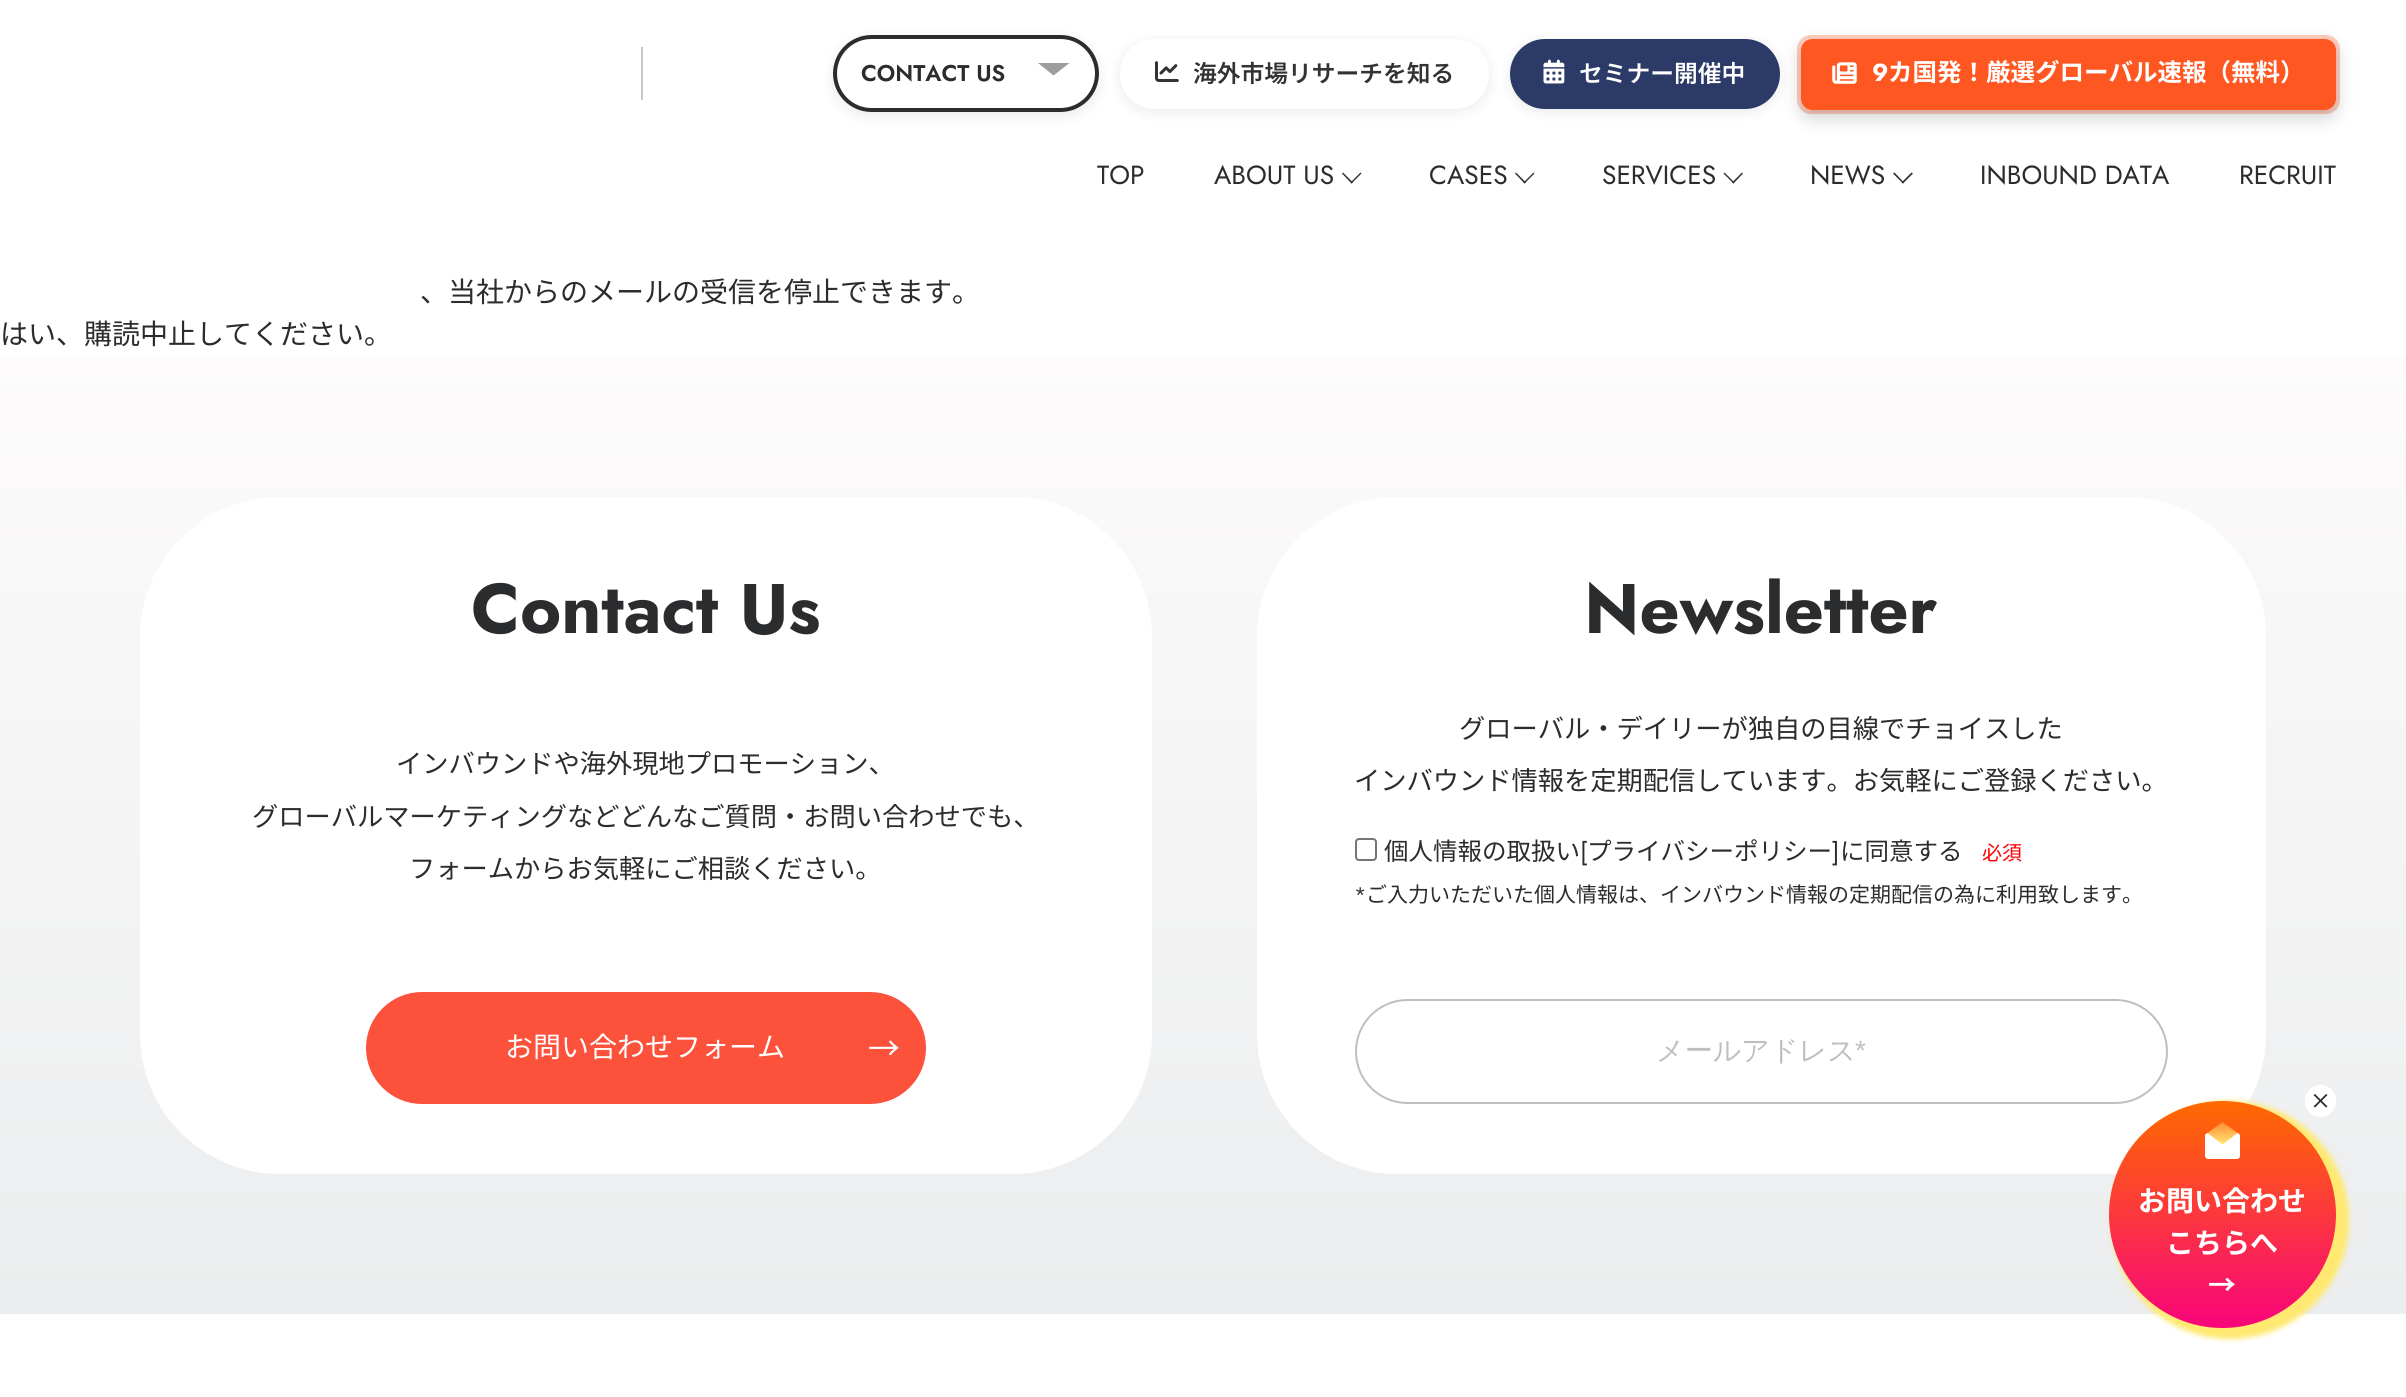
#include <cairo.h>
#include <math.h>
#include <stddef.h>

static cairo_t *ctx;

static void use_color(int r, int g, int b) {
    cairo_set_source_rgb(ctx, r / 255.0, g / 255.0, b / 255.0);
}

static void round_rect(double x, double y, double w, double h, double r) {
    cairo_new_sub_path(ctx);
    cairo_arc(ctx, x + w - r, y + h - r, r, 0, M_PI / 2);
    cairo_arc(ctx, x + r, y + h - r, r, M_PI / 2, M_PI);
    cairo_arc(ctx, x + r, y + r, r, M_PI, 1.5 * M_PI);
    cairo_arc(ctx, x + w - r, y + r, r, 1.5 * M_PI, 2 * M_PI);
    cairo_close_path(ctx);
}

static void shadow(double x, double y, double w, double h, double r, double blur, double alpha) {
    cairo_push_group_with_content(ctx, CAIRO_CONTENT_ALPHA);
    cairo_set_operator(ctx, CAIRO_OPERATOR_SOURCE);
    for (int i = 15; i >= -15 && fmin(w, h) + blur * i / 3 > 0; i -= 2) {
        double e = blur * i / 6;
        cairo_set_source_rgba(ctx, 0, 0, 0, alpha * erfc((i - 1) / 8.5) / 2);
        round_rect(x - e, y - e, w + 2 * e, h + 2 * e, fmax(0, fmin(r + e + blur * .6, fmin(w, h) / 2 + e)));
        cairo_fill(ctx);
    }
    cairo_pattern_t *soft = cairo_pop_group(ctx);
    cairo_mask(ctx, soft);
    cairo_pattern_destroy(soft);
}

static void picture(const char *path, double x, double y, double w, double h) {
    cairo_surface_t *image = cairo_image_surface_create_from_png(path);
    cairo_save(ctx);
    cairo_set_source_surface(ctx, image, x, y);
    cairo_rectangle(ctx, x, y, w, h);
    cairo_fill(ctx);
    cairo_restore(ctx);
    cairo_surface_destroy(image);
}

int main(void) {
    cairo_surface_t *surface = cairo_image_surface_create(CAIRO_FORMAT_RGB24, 2406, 1397);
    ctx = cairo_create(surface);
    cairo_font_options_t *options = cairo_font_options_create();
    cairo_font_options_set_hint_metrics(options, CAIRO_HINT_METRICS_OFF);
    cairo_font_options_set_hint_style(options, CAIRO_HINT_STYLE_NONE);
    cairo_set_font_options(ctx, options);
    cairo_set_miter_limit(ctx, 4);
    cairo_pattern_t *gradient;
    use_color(255, 255, 255);
    cairo_paint(ctx);
    use_color(199, 199, 199);
    cairo_rectangle(ctx, 641, 47, 2, 53);
    cairo_fill(ctx);
    cairo_save(ctx);
    cairo_set_fill_rule(ctx, CAIRO_FILL_RULE_EVEN_ODD);
    cairo_new_path(ctx);
    cairo_move_to(ctx, 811, 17);
    cairo_line_to(ctx, 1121, 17);
    cairo_line_to(ctx, 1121, 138);
    cairo_line_to(ctx, 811, 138);
    cairo_close_path(ctx);
    cairo_move_to(ctx, 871.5, 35);
    cairo_line_to(ctx, 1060.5, 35);
    cairo_curve_to(ctx, 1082, 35, 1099, 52, 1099, 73.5);
    cairo_curve_to(ctx, 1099, 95, 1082, 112, 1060.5, 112);
    cairo_line_to(ctx, 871.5, 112);
    cairo_curve_to(ctx, 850, 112, 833, 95, 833, 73.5);
    cairo_curve_to(ctx, 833, 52, 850, 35, 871.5, 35);
    cairo_close_path(ctx);
    cairo_clip(ctx);
    use_color(0, 0, 0);
    shadow(833, 39, 266, 77, 38.5, 7, 0.08);
    cairo_restore(ctx);
    round_rect(835, 37, 262, 73, 36.5);
    use_color(43, 44, 46);
    cairo_set_line_width(ctx, 4);
    cairo_stroke(ctx);
    cairo_select_font_face(ctx, "Jost SemiBold", CAIRO_FONT_SLANT_NORMAL, CAIRO_FONT_WEIGHT_NORMAL);
    cairo_set_font_size(ctx, 22.75);
    cairo_move_to(ctx, 861, 81);
    cairo_show_text(ctx, "CONTACT US");
    use_color(157, 157, 157);
    cairo_new_path(ctx);
    cairo_move_to(ctx, 1038, 63);
    cairo_line_to(ctx, 1053.5, 75.5);
    cairo_line_to(ctx, 1069.5, 63);
    cairo_fill(ctx);
    cairo_save(ctx);
    cairo_set_fill_rule(ctx, CAIRO_FILL_RULE_EVEN_ODD);
    cairo_new_path(ctx);
    cairo_move_to(ctx, 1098, 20);
    cairo_line_to(ctx, 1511, 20);
    cairo_line_to(ctx, 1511, 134);
    cairo_line_to(ctx, 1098, 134);
    cairo_close_path(ctx);
    cairo_move_to(ctx, 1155, 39);
    cairo_line_to(ctx, 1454, 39);
    cairo_curve_to(ctx, 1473.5, 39, 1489, 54.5, 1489, 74);
    cairo_curve_to(ctx, 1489, 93.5, 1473.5, 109, 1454, 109);
    cairo_line_to(ctx, 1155, 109);
    cairo_curve_to(ctx, 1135.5, 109, 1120, 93.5, 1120, 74);
    cairo_curve_to(ctx, 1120, 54.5, 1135.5, 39, 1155, 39);
    cairo_close_path(ctx);
    cairo_clip(ctx);
    use_color(0, 0, 0);
    shadow(1120, 42, 369, 70, 35, 7, 0.08);
    cairo_restore(ctx);
    picture("img1.png", 1155, 61, 24, 21);
    cairo_select_font_face(ctx, "Noto Sans JP SemiBold", CAIRO_FONT_SLANT_NORMAL, CAIRO_FONT_WEIGHT_NORMAL);
    cairo_set_font_size(ctx, 23.75);
    use_color(51, 51, 51);
    cairo_move_to(ctx, 1193, 82);
    cairo_show_text(ctx, "海外市場リサーチを知る");
    use_color(0, 0, 0);
    shadow(1510, 42, 270, 70, 35, 7, 0.08);
    use_color(43, 58, 103);
    round_rect(1510, 39, 270, 70, 35);
    cairo_fill(ctx);
    picture("img2.png", 1543, 59, 22, 25);
    use_color(255, 255, 255);
    cairo_move_to(ctx, 1579, 82);
    cairo_show_text(ctx, "セミナー開催中");
    round_rect(1799, 37, 539, 75, 12);
    use_color(255, 205, 189);
    cairo_stroke(ctx);
    use_color(0, 0, 0);
    shadow(1801, 46, 535, 71, 11, 9, 0.2);
    use_color(255, 87, 34);
    round_rect(1801, 39, 535, 71, 11);
    cairo_fill(ctx);
    picture("img3.png", 1832, 62, 25, 22);
    cairo_select_font_face(ctx, "Jost", CAIRO_FONT_SLANT_NORMAL, CAIRO_FONT_WEIGHT_BOLD);
    cairo_set_font_size(ctx, 24.5);
    use_color(255, 255, 255);
    cairo_move_to(ctx, 1872, 81);
    cairo_show_text(ctx, "9");
    cairo_select_font_face(ctx, "Noto Sans JP", CAIRO_FONT_SLANT_NORMAL, CAIRO_FONT_WEIGHT_BOLD);
    cairo_move_to(ctx, 1888, 81);
    cairo_show_text(ctx, "カ国発！厳選グローバル速報（無料）");
    cairo_select_font_face(ctx, "Jost", CAIRO_FONT_SLANT_NORMAL, CAIRO_FONT_WEIGHT_NORMAL);
    cairo_set_font_size(ctx, 26.25);
    use_color(43, 44, 46);
    cairo_move_to(ctx, 1097, 184);
    cairo_show_text(ctx, "TOP");
    cairo_move_to(ctx, 1214, 184);
    cairo_show_text(ctx, "ABOUT US");
    use_color(51, 51, 51);
    cairo_new_path(ctx);
    cairo_move_to(ctx, 1360.5, 172.5);
    cairo_line_to(ctx, 1361.5, 173.5);
    cairo_line_to(ctx, 1351.5, 183.5);
    cairo_line_to(ctx, 1350.5, 182.5);
    cairo_close_path(ctx);
    cairo_fill(ctx);
    cairo_new_path(ctx);
    cairo_move_to(ctx, 1343, 172.5);
    cairo_line_to(ctx, 1353, 182.5);
    cairo_line_to(ctx, 1351.5, 183.5);
    cairo_line_to(ctx, 1342, 173.5);
    cairo_close_path(ctx);
    cairo_fill(ctx);
    use_color(43, 44, 46);
    cairo_move_to(ctx, 1429, 184);
    cairo_show_text(ctx, "CASES");
    use_color(51, 51, 51);
    cairo_new_path(ctx);
    cairo_move_to(ctx, 1533.5, 172.5);
    cairo_line_to(ctx, 1534.5, 173.5);
    cairo_line_to(ctx, 1524.5, 183.5);
    cairo_line_to(ctx, 1523.5, 182.5);
    cairo_close_path(ctx);
    cairo_fill(ctx);
    cairo_new_path(ctx);
    cairo_move_to(ctx, 1516, 172.5);
    cairo_line_to(ctx, 1526, 182.5);
    cairo_line_to(ctx, 1524.5, 183.5);
    cairo_line_to(ctx, 1515, 173.5);
    cairo_close_path(ctx);
    cairo_fill(ctx);
    use_color(43, 44, 46);
    cairo_move_to(ctx, 1602, 184);
    cairo_show_text(ctx, "SERVICES");
    use_color(51, 51, 51);
    cairo_new_path(ctx);
    cairo_move_to(ctx, 1742, 172.5);
    cairo_line_to(ctx, 1743, 173.5);
    cairo_line_to(ctx, 1733.5, 183.5);
    cairo_line_to(ctx, 1732, 182.5);
    cairo_close_path(ctx);
    cairo_fill(ctx);
    cairo_new_path(ctx);
    cairo_move_to(ctx, 1724.5, 172.5);
    cairo_line_to(ctx, 1734.5, 182.5);
    cairo_line_to(ctx, 1733.5, 183.5);
    cairo_line_to(ctx, 1723.5, 173.5);
    cairo_close_path(ctx);
    cairo_fill(ctx);
    use_color(43, 44, 46);
    cairo_move_to(ctx, 1810, 184);
    cairo_show_text(ctx, "NEWS");
    use_color(51, 51, 51);
    cairo_new_path(ctx);
    cairo_move_to(ctx, 1911.5, 172.5);
    cairo_line_to(ctx, 1913, 173.5);
    cairo_line_to(ctx, 1903, 183.5);
    cairo_line_to(ctx, 1901.5, 182.5);
    cairo_close_path(ctx);
    cairo_fill(ctx);
    cairo_new_path(ctx);
    cairo_move_to(ctx, 1894.5, 172.5);
    cairo_line_to(ctx, 1904, 182.5);
    cairo_line_to(ctx, 1903, 183.5);
    cairo_line_to(ctx, 1893, 173.5);
    cairo_close_path(ctx);
    cairo_fill(ctx);
    use_color(43, 44, 46);
    cairo_move_to(ctx, 1980, 184);
    cairo_show_text(ctx, "INBOUND DATA");
    cairo_move_to(ctx, 2239, 184);
    cairo_show_text(ctx, "RECRUIT");
    cairo_select_font_face(ctx, "Noto Sans JP", CAIRO_FONT_SLANT_NORMAL, CAIRO_FONT_WEIGHT_NORMAL);
    cairo_set_font_size(ctx, 28);
    cairo_move_to(ctx, 420, 302);
    cairo_show_text(ctx, "、当社からのメールの受信を停止できます。");
    cairo_move_to(ctx, 0, 344);
    cairo_show_text(ctx, "はい、購読中止してください。");
    gradient = cairo_pattern_create_linear(1203, 357, 1203, 1314);
    cairo_pattern_add_color_stop_rgba(gradient, 0, 0.992, 0.984, 0.984, 1);
    cairo_pattern_add_color_stop_rgba(gradient, 1, 0.922, 0.929, 0.933, 1);
    cairo_set_source(ctx, gradient);
    cairo_pattern_destroy(gradient);
    cairo_rectangle(ctx, 0, 357, 2406, 957);
    cairo_fill(ctx);
    use_color(255, 255, 255);
    round_rect(140, 497, 1012, 677, 140);
    cairo_fill(ctx);
    cairo_select_font_face(ctx, "Jost", CAIRO_FONT_SLANT_NORMAL, CAIRO_FONT_WEIGHT_BOLD);
    cairo_set_font_size(ctx, 70);
    use_color(43, 44, 46);
    cairo_move_to(ctx, 471, 633);
    cairo_show_text(ctx, "Contact Us");
    cairo_select_font_face(ctx, "Noto Sans JP", CAIRO_FONT_SLANT_NORMAL, CAIRO_FONT_WEIGHT_NORMAL);
    cairo_set_font_size(ctx, 26.25);
    cairo_move_to(ctx, 396, 773);
    cairo_show_text(ctx, "インバウンドや海外現地プロモーション、");
    cairo_move_to(ctx, 252, 826);
    cairo_show_text(ctx, "グローバルマーケティングなどどんなご質問・お問い合わせでも、");
    cairo_move_to(ctx, 409, 878);
    cairo_show_text(ctx, "フォームからお気軽にご相談ください。");
    use_color(252, 82, 60);
    round_rect(366, 992, 560, 112, 56);
    cairo_fill(ctx);
    cairo_set_font_size(ctx, 28);
    use_color(255, 255, 255);
    cairo_move_to(ctx, 505, 1057);
    cairo_show_text(ctx, "お問い合わせフォーム");
    cairo_set_font_size(ctx, 32);
    cairo_move_to(ctx, 868, 1060);
    cairo_show_text(ctx, "→");
    round_rect(1257, 497, 1009, 677, 140);
    cairo_fill(ctx);
    cairo_select_font_face(ctx, "Jost", CAIRO_FONT_SLANT_NORMAL, CAIRO_FONT_WEIGHT_BOLD);
    cairo_set_font_size(ctx, 70);
    use_color(43, 44, 46);
    cairo_move_to(ctx, 1584, 633);
    cairo_show_text(ctx, "Newsletter");
    cairo_select_font_face(ctx, "Noto Sans JP", CAIRO_FONT_SLANT_NORMAL, CAIRO_FONT_WEIGHT_NORMAL);
    cairo_set_font_size(ctx, 26.25);
    cairo_move_to(ctx, 1459, 738);
    cairo_show_text(ctx, "グローバル・デイリーが独自の目線でチョイスした");
    cairo_move_to(ctx, 1354, 790);
    cairo_show_text(ctx, "インバウンド情報を定期配信しています。お気軽にご登録ください。");
    round_rect(1356, 839, 20, 21, 3);
    use_color(118, 118, 118);
    cairo_set_line_width(ctx, 2);
    cairo_stroke(ctx);
    cairo_set_font_size(ctx, 24.5);
    use_color(43, 44, 46);
    cairo_move_to(ctx, 1384, 860);
    cairo_show_text(ctx, "個人情報の取扱い");
    cairo_select_font_face(ctx, "Jost", CAIRO_FONT_SLANT_NORMAL, CAIRO_FONT_WEIGHT_NORMAL);
    cairo_move_to(ctx, 1580, 860);
    cairo_show_text(ctx, "[");
    cairo_select_font_face(ctx, "Noto Sans JP", CAIRO_FONT_SLANT_NORMAL, CAIRO_FONT_WEIGHT_NORMAL);
    cairo_move_to(ctx, 1587, 860);
    cairo_show_text(ctx, "プライバシーポリシー");
    cairo_select_font_face(ctx, "Jost", CAIRO_FONT_SLANT_NORMAL, CAIRO_FONT_WEIGHT_NORMAL);
    cairo_move_to(ctx, 1832, 860);
    cairo_show_text(ctx, "]");
    cairo_select_font_face(ctx, "Noto Sans JP", CAIRO_FONT_SLANT_NORMAL, CAIRO_FONT_WEIGHT_NORMAL);
    cairo_move_to(ctx, 1840, 860);
    cairo_show_text(ctx, "に同意する");
    cairo_set_font_size(ctx, 20);
    use_color(255, 0, 0);
    cairo_move_to(ctx, 1982, 860);
    cairo_show_text(ctx, "必須");
    cairo_select_font_face(ctx, "Jost", CAIRO_FONT_SLANT_NORMAL, CAIRO_FONT_WEIGHT_NORMAL);
    cairo_set_font_size(ctx, 21);
    use_color(43, 44, 46);
    cairo_move_to(ctx, 1354, 902);
    cairo_show_text(ctx, "*");
    cairo_select_font_face(ctx, "Noto Sans JP", CAIRO_FONT_SLANT_NORMAL, CAIRO_FONT_WEIGHT_NORMAL);
    cairo_move_to(ctx, 1366, 902);
    cairo_show_text(ctx, "ご入力いただいた個人情報は、インバウンド情報の定期配信の為に利用致します。");
    round_rect(1356, 1000, 811, 103, 51.5);
    use_color(191, 191, 191);
    cairo_stroke(ctx);
    cairo_select_font_face(ctx, "WenQuanYi Zen Hei Medium", CAIRO_FONT_SLANT_NORMAL, CAIRO_FONT_WEIGHT_NORMAL);
    cairo_set_font_size(ctx, 28);
    cairo_move_to(ctx, 1656, 1060);
    cairo_show_text(ctx, "メールアドレス");
    cairo_select_font_face(ctx, "Liberation Sans", CAIRO_FONT_SLANT_NORMAL, CAIRO_FONT_WEIGHT_NORMAL);
    cairo_move_to(ctx, 1855, 1060);
    cairo_show_text(ctx, "*");
    use_color(255, 233, 113);
    shadow(2111, 1101, 238, 238, 119, 2.5, 1);
    gradient = cairo_pattern_create_linear(2223, 1101, 2223, 1328);
    cairo_pattern_add_color_stop_rgba(gradient, 0, 1, 0.416, 0, 1);
    cairo_pattern_add_color_stop_rgba(gradient, 1, 0.973, 0.016, 0.482, 1);
    cairo_set_source(ctx, gradient);
    cairo_pattern_destroy(gradient);
    cairo_arc(ctx, 2222.5, 1214.5, 113.5, 0, 2 * M_PI);
    cairo_fill(ctx);
    use_color(255, 255, 255);
    round_rect(2305, 1085, 31, 32, 15.5);
    cairo_fill(ctx);
    use_color(43, 44, 46);
    cairo_new_path(ctx);
    cairo_move_to(ctx, 2326, 1094);
    cairo_line_to(ctx, 2327.5, 1095);
    cairo_line_to(ctx, 2315, 1107.5);
    cairo_line_to(ctx, 2313.5, 1106.5);
    cairo_close_path(ctx);
    cairo_fill(ctx);
    cairo_new_path(ctx);
    cairo_move_to(ctx, 2313.5, 1095);
    cairo_line_to(ctx, 2315, 1094);
    cairo_line_to(ctx, 2327.5, 1106.5);
    cairo_line_to(ctx, 2326, 1107.5);
    cairo_close_path(ctx);
    cairo_fill(ctx);
    use_color(255, 255, 255);
    round_rect(2206.25, 1134.25, 32.5, 23.5, 1.75);
    cairo_fill_preserve(ctx);
    cairo_set_line_width(ctx, 2.5);
    cairo_stroke(ctx);
    gradient = cairo_pattern_create_linear(2223, 1122, 2223, 1145);
    cairo_pattern_add_color_stop_rgba(gradient, 0, 1, 0.541, 0.212, 1);
    cairo_pattern_add_color_stop_rgba(gradient, 1, 1, 0.914, 0.443, 1);
    cairo_set_source(ctx, gradient);
    cairo_pattern_destroy(gradient);
    cairo_new_path(ctx);
    cairo_move_to(ctx, 2207.5, 1133);
    cairo_line_to(ctx, 2222.5, 1122);
    cairo_line_to(ctx, 2237.5, 1133);
    cairo_line_to(ctx, 2222.5, 1144.5);
    cairo_close_path(ctx);
    cairo_fill(ctx);
    cairo_select_font_face(ctx, "Noto Sans JP", CAIRO_FONT_SLANT_NORMAL, CAIRO_FONT_WEIGHT_BOLD);
    use_color(255, 255, 255);
    cairo_move_to(ctx, 2138, 1211);
    cairo_show_text(ctx, "お問い合わせ");
    cairo_move_to(ctx, 2166, 1253);
    cairo_show_text(ctx, "こちらへ");
    cairo_move_to(ctx, 2208, 1295);
    cairo_show_text(ctx, "→");
    cairo_surface_write_to_png(surface, "result.png");
    cairo_font_options_destroy(options);
    cairo_destroy(ctx);
    cairo_surface_destroy(surface);
    return 0;
}
